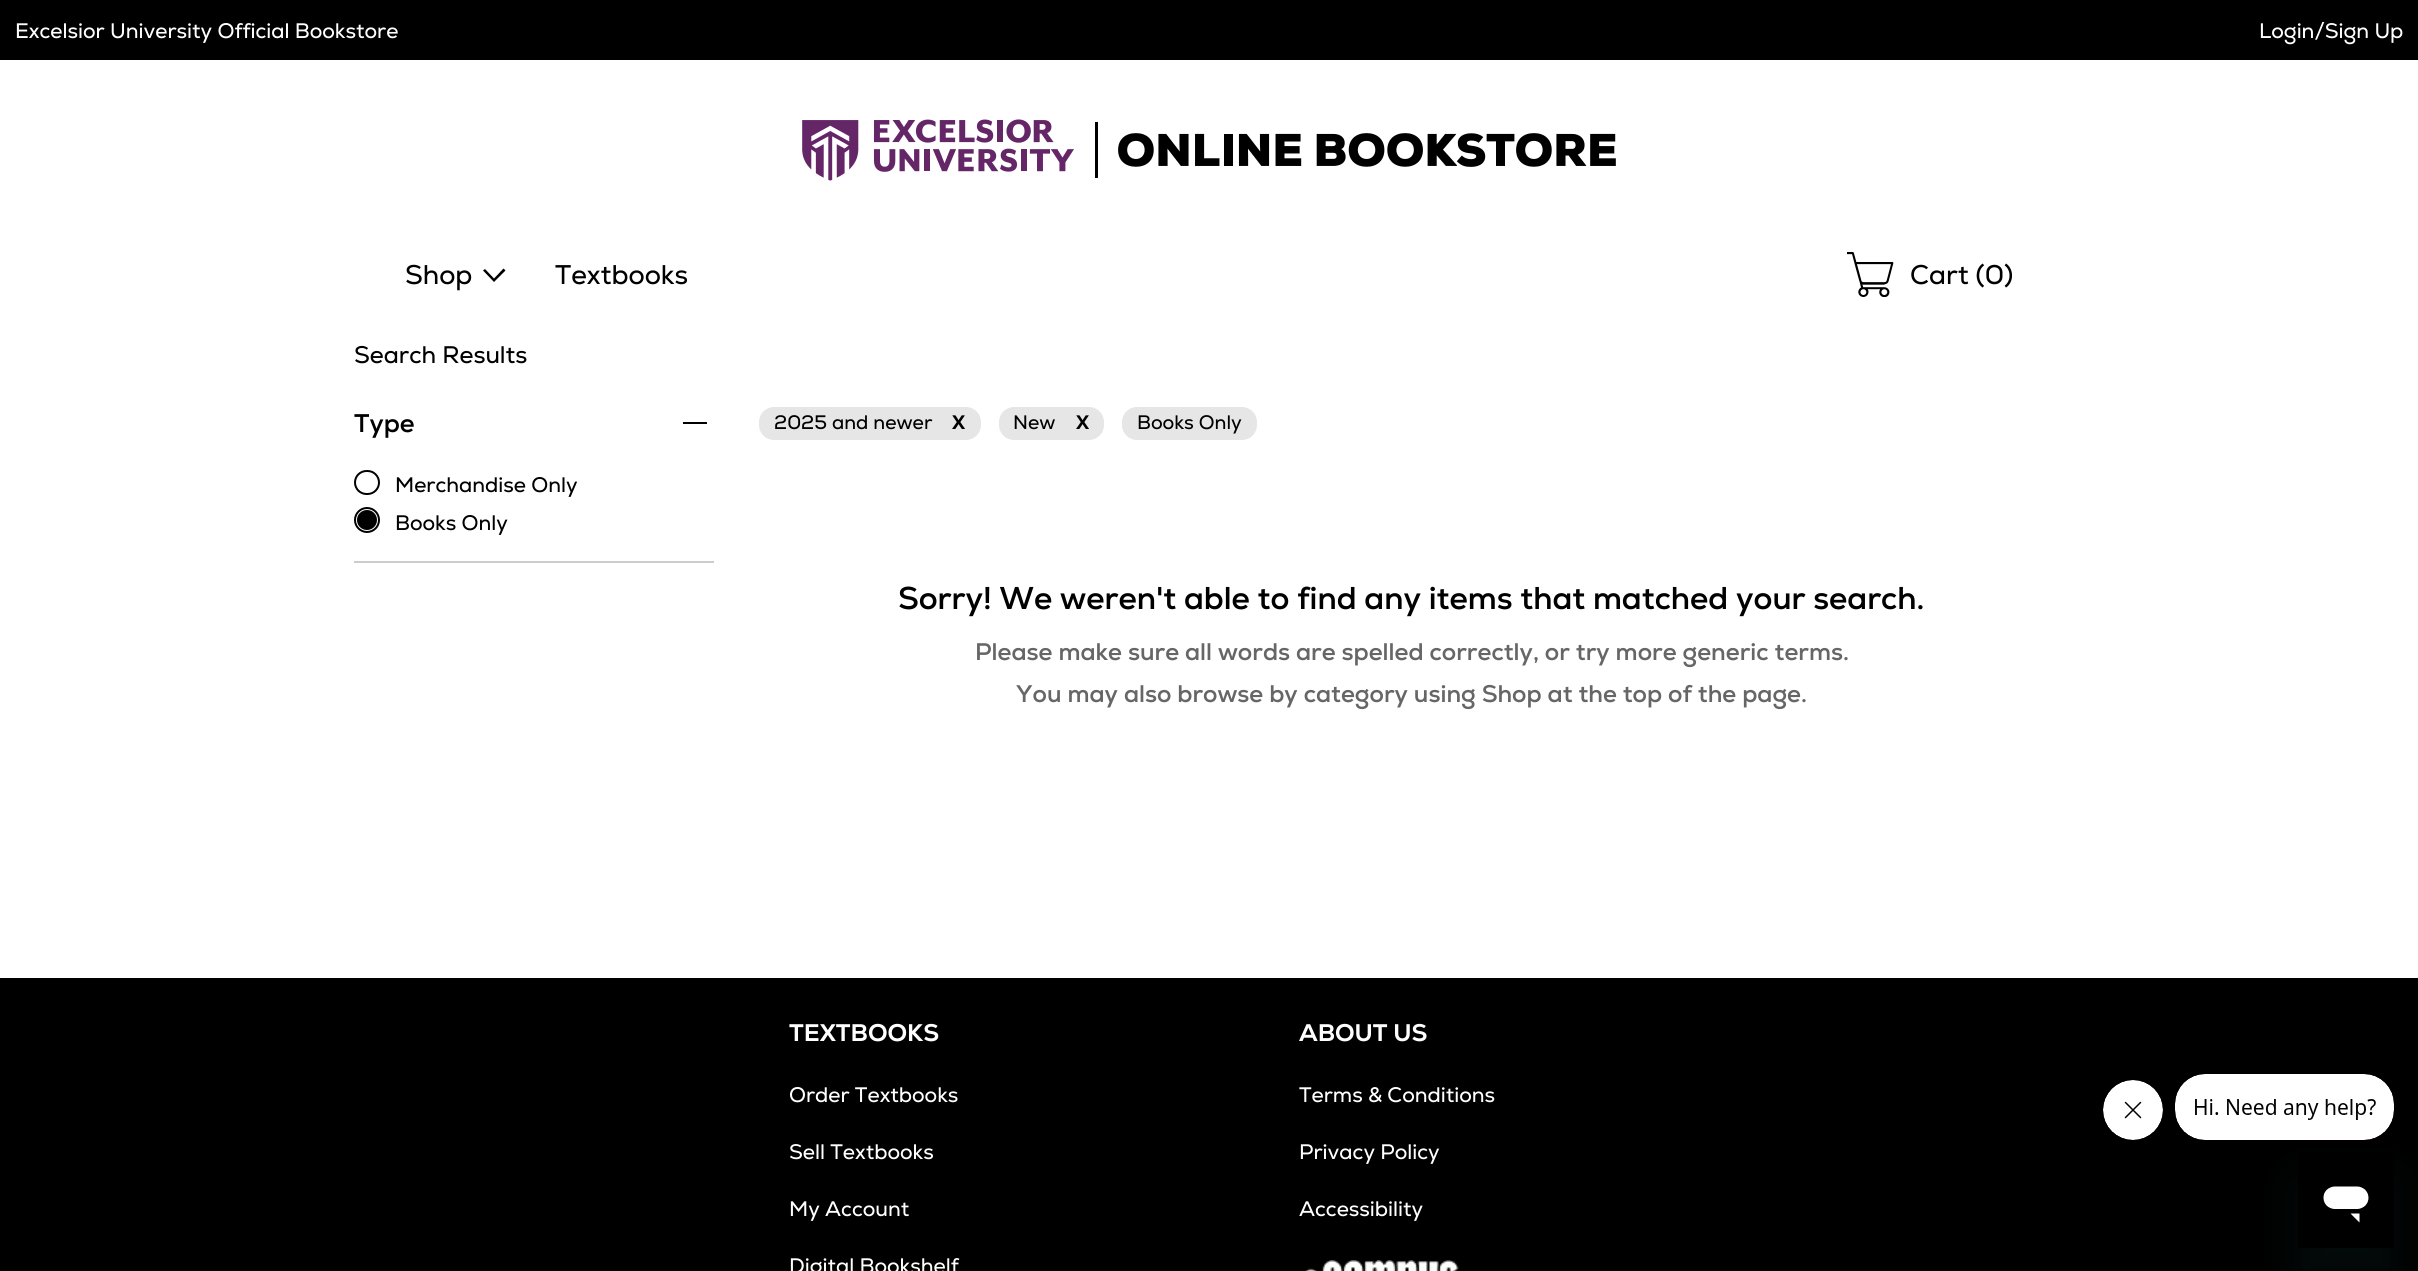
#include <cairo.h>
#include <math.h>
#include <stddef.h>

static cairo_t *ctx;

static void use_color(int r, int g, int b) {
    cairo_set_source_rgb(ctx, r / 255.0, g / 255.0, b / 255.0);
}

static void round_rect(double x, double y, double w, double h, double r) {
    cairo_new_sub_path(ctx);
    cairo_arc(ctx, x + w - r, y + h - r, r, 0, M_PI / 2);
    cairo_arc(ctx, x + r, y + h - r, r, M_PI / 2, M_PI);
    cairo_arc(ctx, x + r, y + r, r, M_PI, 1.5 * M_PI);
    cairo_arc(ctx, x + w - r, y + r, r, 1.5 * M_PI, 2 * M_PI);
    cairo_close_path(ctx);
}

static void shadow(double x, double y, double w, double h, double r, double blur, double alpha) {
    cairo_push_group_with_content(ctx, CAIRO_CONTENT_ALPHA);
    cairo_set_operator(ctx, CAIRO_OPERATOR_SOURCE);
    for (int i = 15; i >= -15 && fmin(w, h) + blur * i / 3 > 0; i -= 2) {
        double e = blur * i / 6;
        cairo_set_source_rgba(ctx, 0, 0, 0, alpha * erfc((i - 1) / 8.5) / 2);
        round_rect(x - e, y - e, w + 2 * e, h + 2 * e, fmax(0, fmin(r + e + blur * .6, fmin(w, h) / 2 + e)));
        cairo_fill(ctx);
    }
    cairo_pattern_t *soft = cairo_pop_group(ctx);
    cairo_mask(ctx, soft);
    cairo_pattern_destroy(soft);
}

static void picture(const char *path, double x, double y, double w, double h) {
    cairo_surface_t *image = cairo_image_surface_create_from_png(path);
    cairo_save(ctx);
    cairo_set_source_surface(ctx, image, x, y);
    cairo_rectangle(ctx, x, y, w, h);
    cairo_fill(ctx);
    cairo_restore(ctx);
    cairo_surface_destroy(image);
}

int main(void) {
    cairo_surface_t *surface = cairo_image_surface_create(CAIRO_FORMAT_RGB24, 2418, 1271);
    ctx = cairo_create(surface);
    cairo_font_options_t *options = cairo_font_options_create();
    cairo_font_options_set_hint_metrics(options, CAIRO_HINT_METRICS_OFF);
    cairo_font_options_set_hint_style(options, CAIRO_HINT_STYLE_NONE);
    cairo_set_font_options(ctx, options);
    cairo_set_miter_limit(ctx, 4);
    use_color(255, 255, 255);
    cairo_paint(ctx);
    use_color(0, 0, 0);
    cairo_rectangle(ctx, 0, 0, 2418, 60);
    cairo_fill(ctx);
    cairo_select_font_face(ctx, "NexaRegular", CAIRO_FONT_SLANT_NORMAL, CAIRO_FONT_WEIGHT_NORMAL);
    cairo_set_font_size(ctx, 21);
    use_color(255, 255, 255);
    cairo_move_to(ctx, 15, 38);
    cairo_show_text(ctx, "Excelsior University Official Bookstore");
    cairo_move_to(ctx, 2259, 38);
    cairo_show_text(ctx, "Login/Sign Up");
    picture("img1.png", 802, 119, 814, 62);
    cairo_set_font_size(ctx, 27);
    use_color(0, 0, 0);
    cairo_move_to(ctx, 405, 284);
    cairo_show_text(ctx, "Shop");
    cairo_new_path(ctx);
    cairo_move_to(ctx, 483, 270.5);
    cairo_line_to(ctx, 485, 269);
    cairo_line_to(ctx, 494, 278.5);
    cairo_line_to(ctx, 503.5, 268.5);
    cairo_line_to(ctx, 505.5, 270.5);
    cairo_line_to(ctx, 494, 282);
    cairo_close_path(ctx);
    cairo_fill(ctx);
    cairo_move_to(ctx, 555, 284);
    cairo_show_text(ctx, "Textbooks");
    picture("img2.png", 1847, 252, 47, 45);
    cairo_move_to(ctx, 1910, 284);
    cairo_show_text(ctx, "Cart (0)");
    cairo_set_font_size(ctx, 24);
    cairo_move_to(ctx, 354, 363);
    cairo_show_text(ctx, "Search Results");
    use_color(204, 204, 204);
    cairo_rectangle(ctx, 354, 561, 360, 2);
    cairo_fill(ctx);
    cairo_select_font_face(ctx, "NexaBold", CAIRO_FONT_SLANT_NORMAL, CAIRO_FONT_WEIGHT_BOLD);
    cairo_set_font_size(ctx, 25.5);
    use_color(0, 0, 0);
    cairo_move_to(ctx, 354, 432);
    cairo_show_text(ctx, "Type");
    cairo_rectangle(ctx, 683, 422, 24, 2);
    cairo_fill(ctx);
    round_rect(355, 471, 24, 23, 11.5);
    cairo_stroke(ctx);
    cairo_select_font_face(ctx, "NexaRegular", CAIRO_FONT_SLANT_NORMAL, CAIRO_FONT_WEIGHT_NORMAL);
    cairo_set_font_size(ctx, 21);
    cairo_move_to(ctx, 395, 492);
    cairo_show_text(ctx, "Merchandise Only");
    cairo_new_path(ctx);
    cairo_arc(ctx, 367, 520, 12, 0, 2 * M_PI);
    cairo_stroke(ctx);
    cairo_arc(ctx, 367, 520, 10, 0, 2 * M_PI);
    cairo_fill(ctx);
    cairo_move_to(ctx, 395, 530);
    cairo_show_text(ctx, "Books Only");
    use_color(230, 230, 230);
    round_rect(759, 407, 222, 33, 15);
    cairo_fill(ctx);
    cairo_set_font_size(ctx, 19.5);
    use_color(0, 0, 0);
    cairo_move_to(ctx, 774, 429);
    cairo_show_text(ctx, "2025 and newer");
    cairo_select_font_face(ctx, "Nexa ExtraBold", CAIRO_FONT_SLANT_NORMAL, CAIRO_FONT_WEIGHT_NORMAL);
    cairo_move_to(ctx, 952, 429);
    cairo_show_text(ctx, "X");
    use_color(230, 230, 230);
    round_rect(999, 407, 105, 33, 15);
    cairo_fill(ctx);
    cairo_select_font_face(ctx, "NexaRegular", CAIRO_FONT_SLANT_NORMAL, CAIRO_FONT_WEIGHT_NORMAL);
    use_color(0, 0, 0);
    cairo_move_to(ctx, 1013, 429);
    cairo_show_text(ctx, "New");
    cairo_select_font_face(ctx, "Nexa ExtraBold", CAIRO_FONT_SLANT_NORMAL, CAIRO_FONT_WEIGHT_NORMAL);
    cairo_move_to(ctx, 1076, 429);
    cairo_show_text(ctx, "X");
    use_color(230, 230, 230);
    round_rect(1122, 407, 135, 33, 15);
    cairo_fill(ctx);
    cairo_select_font_face(ctx, "NexaRegular", CAIRO_FONT_SLANT_NORMAL, CAIRO_FONT_WEIGHT_NORMAL);
    use_color(0, 0, 0);
    cairo_move_to(ctx, 1137, 429);
    cairo_show_text(ctx, "Books Only");
    cairo_select_font_face(ctx, "NexaBold", CAIRO_FONT_SLANT_NORMAL, CAIRO_FONT_WEIGHT_BOLD);
    cairo_set_font_size(ctx, 31.5);
    cairo_move_to(ctx, 898, 609);
    cairo_show_text(ctx, "Sorry! We weren't able to find any items that matched your search.");
    cairo_set_font_size(ctx, 24);
    use_color(102, 102, 102);
    cairo_move_to(ctx, 975, 660);
    cairo_show_text(ctx, "Please make sure all words are spelled correctly, or try more generic terms.");
    cairo_move_to(ctx, 1016, 702);
    cairo_show_text(ctx, "You may also browse by category using Shop at the top of the page.");
    use_color(0, 0, 0);
    cairo_rectangle(ctx, 0, 978, 2418, 293);
    cairo_fill(ctx);
    cairo_select_font_face(ctx, "Nexa ExtraBold", CAIRO_FONT_SLANT_NORMAL, CAIRO_FONT_WEIGHT_NORMAL);
    use_color(255, 255, 255);
    cairo_move_to(ctx, 789, 1041);
    cairo_show_text(ctx, "TEXTBOOKS");
    cairo_select_font_face(ctx, "NexaRegular", CAIRO_FONT_SLANT_NORMAL, CAIRO_FONT_WEIGHT_NORMAL);
    cairo_set_font_size(ctx, 21);
    cairo_move_to(ctx, 789, 1102);
    cairo_show_text(ctx, "Order Textbooks");
    cairo_move_to(ctx, 789, 1159);
    cairo_show_text(ctx, "Sell Textbooks");
    cairo_move_to(ctx, 789, 1216);
    cairo_show_text(ctx, "My Account");
    cairo_move_to(ctx, 789, 1273);
    cairo_show_text(ctx, "Digital Bookshelf");
    cairo_select_font_face(ctx, "Nexa ExtraBold", CAIRO_FONT_SLANT_NORMAL, CAIRO_FONT_WEIGHT_NORMAL);
    cairo_set_font_size(ctx, 24);
    cairo_move_to(ctx, 1299, 1041);
    cairo_show_text(ctx, "ABOUT US");
    cairo_select_font_face(ctx, "NexaRegular", CAIRO_FONT_SLANT_NORMAL, CAIRO_FONT_WEIGHT_NORMAL);
    cairo_set_font_size(ctx, 21);
    cairo_move_to(ctx, 1299, 1102);
    cairo_show_text(ctx, "Terms & Conditions");
    cairo_move_to(ctx, 1299, 1159);
    cairo_show_text(ctx, "Privacy Policy");
    cairo_move_to(ctx, 1299, 1216);
    cairo_show_text(ctx, "Accessibility");
    picture("img3.png", 1305, 1260, 154, 11);
    picture("img4.png", 2103, 1080, 60, 60);
    picture("img5.png", 2175, 1074, 219, 66);
    cairo_save(ctx);
    cairo_set_fill_rule(ctx, CAIRO_FILL_RULE_EVEN_ODD);
    cairo_new_path(ctx);
    cairo_move_to(ctx, 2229, 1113);
    cairo_line_to(ctx, 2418, 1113);
    cairo_line_to(ctx, 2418, 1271);
    cairo_line_to(ctx, 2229, 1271);
    cairo_close_path(ctx);
    cairo_move_to(ctx, 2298, 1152);
    cairo_line_to(ctx, 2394, 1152);
    cairo_line_to(ctx, 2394, 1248);
    cairo_line_to(ctx, 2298, 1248);
    cairo_close_path(ctx);
    cairo_clip(ctx);
    use_color(23, 73, 77);
    shadow(2298, 1182, 96, 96, 0, 22.5, 0.15);
    cairo_restore(ctx);
    picture("img6.png", 2298, 1152, 94, 71);
    cairo_surface_write_to_png(surface, "result.png");
    cairo_font_options_destroy(options);
    cairo_destroy(ctx);
    cairo_surface_destroy(surface);
    return 0;
}
